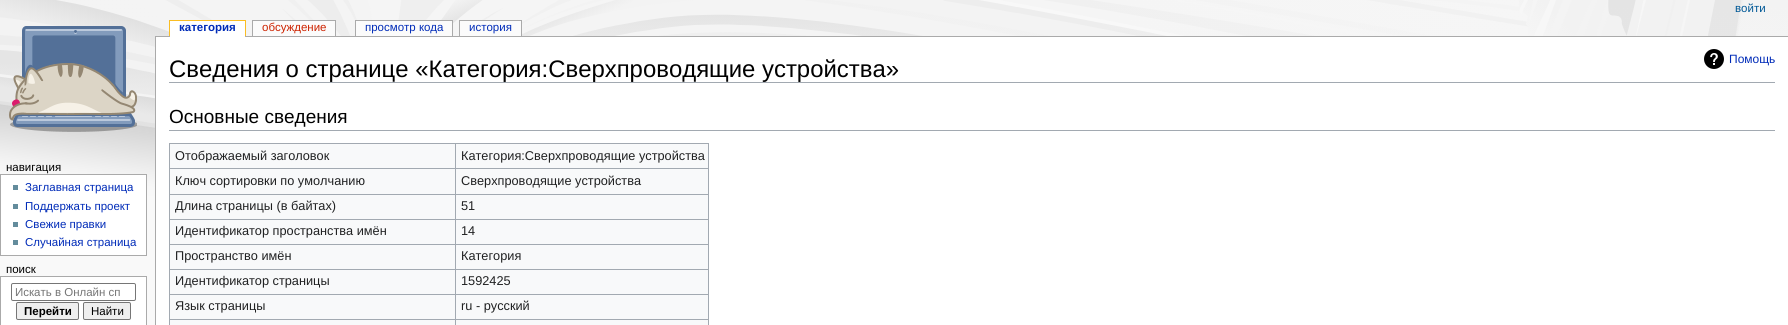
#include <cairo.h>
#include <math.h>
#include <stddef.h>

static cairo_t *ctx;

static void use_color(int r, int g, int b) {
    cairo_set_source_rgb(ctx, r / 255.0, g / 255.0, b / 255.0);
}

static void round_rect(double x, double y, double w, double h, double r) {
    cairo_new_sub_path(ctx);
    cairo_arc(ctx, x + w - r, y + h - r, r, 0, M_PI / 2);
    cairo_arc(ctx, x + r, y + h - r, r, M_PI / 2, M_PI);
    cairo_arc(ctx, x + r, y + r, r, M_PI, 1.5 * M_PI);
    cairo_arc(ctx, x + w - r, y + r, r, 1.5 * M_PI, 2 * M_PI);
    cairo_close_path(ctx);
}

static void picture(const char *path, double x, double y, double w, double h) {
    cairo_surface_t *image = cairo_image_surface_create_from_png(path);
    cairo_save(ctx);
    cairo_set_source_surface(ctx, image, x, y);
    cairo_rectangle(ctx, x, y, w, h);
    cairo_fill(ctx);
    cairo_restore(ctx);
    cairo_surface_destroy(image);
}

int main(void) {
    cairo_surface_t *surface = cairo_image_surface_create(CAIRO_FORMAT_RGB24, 1788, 325);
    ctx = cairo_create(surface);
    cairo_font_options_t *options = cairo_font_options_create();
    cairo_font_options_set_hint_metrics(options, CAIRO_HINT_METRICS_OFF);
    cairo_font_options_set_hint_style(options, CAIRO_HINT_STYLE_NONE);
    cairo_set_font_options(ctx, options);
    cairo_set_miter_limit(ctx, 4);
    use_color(249, 249, 249);
    cairo_paint(ctx);
    picture("img1.png", 0, 0, 1788, 210);
    cairo_select_font_face(ctx, "Liberation Sans", CAIRO_FONT_SLANT_NORMAL, CAIRO_FONT_WEIGHT_NORMAL);
    cairo_set_font_size(ctx, 11.5);
    use_color(0, 88, 150);
    cairo_move_to(ctx, 1735, 12);
    cairo_show_text(ctx, "войти");
    picture("img2.png", 9, 26, 128, 106);
    use_color(170, 170, 170);
    cairo_rectangle(ctx, 155, 36, 1633, 1);
    cairo_fill(ctx);
    use_color(255, 255, 255);
    cairo_rectangle(ctx, 170, 21, 75, 16);
    cairo_fill(ctx);
    cairo_select_font_face(ctx, "Liberation Sans", CAIRO_FONT_SLANT_NORMAL, CAIRO_FONT_WEIGHT_BOLD);
    use_color(0, 43, 184);
    cairo_move_to(ctx, 179, 31);
    cairo_show_text(ctx, "категория");
    use_color(250, 189, 35);
    cairo_rectangle(ctx, 169, 20, 77, 1);
    cairo_fill(ctx);
    cairo_rectangle(ctx, 245, 20, 1, 16);
    cairo_fill(ctx);
    cairo_rectangle(ctx, 169, 20, 1, 16);
    cairo_fill(ctx);
    use_color(251, 251, 251);
    cairo_rectangle(ctx, 253, 21, 82, 15);
    cairo_fill(ctx);
    cairo_select_font_face(ctx, "Liberation Sans", CAIRO_FONT_SLANT_NORMAL, CAIRO_FONT_WEIGHT_NORMAL);
    use_color(204, 34, 0);
    cairo_move_to(ctx, 262, 31);
    cairo_show_text(ctx, "обсуждение");
    use_color(170, 170, 170);
    cairo_rectangle(ctx, 252, 20, 84, 1);
    cairo_fill(ctx);
    cairo_rectangle(ctx, 335, 20, 1, 16);
    cairo_fill(ctx);
    cairo_rectangle(ctx, 252, 20, 1, 16);
    cairo_fill(ctx);
    use_color(251, 251, 251);
    cairo_rectangle(ctx, 356, 21, 96, 15);
    cairo_fill(ctx);
    use_color(0, 43, 184);
    cairo_move_to(ctx, 365, 31);
    cairo_show_text(ctx, "просмотр кода");
    use_color(170, 170, 170);
    cairo_rectangle(ctx, 355, 20, 98, 1);
    cairo_fill(ctx);
    cairo_rectangle(ctx, 452, 20, 1, 16);
    cairo_fill(ctx);
    cairo_rectangle(ctx, 355, 20, 1, 16);
    cairo_fill(ctx);
    use_color(251, 251, 251);
    cairo_rectangle(ctx, 460, 21, 61, 15);
    cairo_fill(ctx);
    use_color(0, 43, 184);
    cairo_move_to(ctx, 469, 31);
    cairo_show_text(ctx, "история");
    use_color(170, 170, 170);
    cairo_rectangle(ctx, 459, 20, 63, 1);
    cairo_fill(ctx);
    cairo_rectangle(ctx, 521, 20, 1, 16);
    cairo_fill(ctx);
    cairo_rectangle(ctx, 459, 20, 1, 16);
    cairo_fill(ctx);
    use_color(0, 0, 0);
    cairo_move_to(ctx, 6, 171);
    cairo_show_text(ctx, "навигация");
    use_color(255, 255, 255);
    cairo_rectangle(ctx, 0.5, 174.5, 146, 81);
    cairo_fill_preserve(ctx);
    use_color(170, 170, 170);
    cairo_set_line_width(ctx, 1);
    cairo_stroke(ctx);
    use_color(99, 140, 156);
    cairo_rectangle(ctx, 13, 185, 5, 5);
    cairo_fill(ctx);
    use_color(0, 43, 184);
    cairo_move_to(ctx, 25, 191);
    cairo_show_text(ctx, "Заглавная страница");
    use_color(99, 140, 156);
    cairo_rectangle(ctx, 13, 204, 5, 5);
    cairo_fill(ctx);
    use_color(0, 43, 184);
    cairo_move_to(ctx, 25, 210);
    cairo_show_text(ctx, "Поддержать проект");
    use_color(99, 140, 156);
    cairo_rectangle(ctx, 13, 222, 5, 5);
    cairo_fill(ctx);
    use_color(0, 43, 184);
    cairo_move_to(ctx, 25, 228);
    cairo_show_text(ctx, "Свежие правки");
    use_color(99, 140, 156);
    cairo_rectangle(ctx, 13, 240, 5, 5);
    cairo_fill(ctx);
    use_color(0, 43, 184);
    cairo_move_to(ctx, 25, 246);
    cairo_show_text(ctx, "Случайная страница");
    use_color(0, 0, 0);
    cairo_move_to(ctx, 6, 273);
    cairo_show_text(ctx, "поиск");
    use_color(255, 255, 255);
    cairo_rectangle(ctx, 0.5, 276.5, 146, 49);
    cairo_fill_preserve(ctx);
    use_color(170, 170, 170);
    cairo_stroke(ctx);
    round_rect(11.5, 283.5, 124, 17, 1.5);
    use_color(118, 118, 118);
    cairo_stroke(ctx);
    use_color(117, 117, 117);
    cairo_move_to(ctx, 15, 296);
    cairo_show_text(ctx, "Искать в Онлайн сп");
    use_color(239, 239, 239);
    round_rect(16.5, 302.5, 62, 17, 1.5);
    cairo_fill_preserve(ctx);
    use_color(118, 118, 118);
    cairo_stroke(ctx);
    cairo_select_font_face(ctx, "Liberation Sans", CAIRO_FONT_SLANT_NORMAL, CAIRO_FONT_WEIGHT_BOLD);
    use_color(0, 0, 0);
    cairo_move_to(ctx, 24, 315);
    cairo_show_text(ctx, "Перейти");
    use_color(239, 239, 239);
    round_rect(83.5, 302.5, 47, 17, 1.5);
    cairo_fill_preserve(ctx);
    use_color(118, 118, 118);
    cairo_stroke(ctx);
    cairo_select_font_face(ctx, "Liberation Sans", CAIRO_FONT_SLANT_NORMAL, CAIRO_FONT_WEIGHT_NORMAL);
    use_color(0, 0, 0);
    cairo_move_to(ctx, 91, 315);
    cairo_show_text(ctx, "Найти");
    use_color(255, 255, 255);
    cairo_rectangle(ctx, 156, 37, 1632, 288);
    cairo_fill(ctx);
    use_color(170, 170, 170);
    cairo_rectangle(ctx, 155, 36, 1, 289);
    cairo_fill(ctx);
    use_color(162, 169, 177);
    cairo_rectangle(ctx, 169, 82, 1606, 1);
    cairo_fill(ctx);
    cairo_set_font_size(ctx, 23.9);
    use_color(0, 0, 0);
    cairo_move_to(ctx, 169, 77);
    cairo_show_text(ctx, "Сведения о странице «Категория:Сверхпроводящие устройства»");
    picture("img3.png", 1704, 49, 20, 20);
    cairo_set_font_size(ctx, 12);
    use_color(0, 43, 184);
    cairo_move_to(ctx, 1729, 63);
    cairo_show_text(ctx, "Помощь");
    use_color(162, 169, 177);
    cairo_rectangle(ctx, 169, 130, 1606, 1);
    cairo_fill(ctx);
    cairo_set_font_size(ctx, 19);
    use_color(0, 0, 0);
    cairo_move_to(ctx, 169, 123);
    cairo_show_text(ctx, "Основные сведения");
    use_color(248, 249, 250);
    cairo_rectangle(ctx, 170, 144, 538, 181);
    cairo_fill(ctx);
    use_color(162, 169, 177);
    cairo_rectangle(ctx, 169, 143, 540, 1);
    cairo_fill(ctx);
    cairo_rectangle(ctx, 708, 143, 1, 182);
    cairo_fill(ctx);
    cairo_rectangle(ctx, 169, 143, 1, 182);
    cairo_fill(ctx);
    cairo_set_font_size(ctx, 12.75);
    use_color(32, 33, 34);
    cairo_move_to(ctx, 175, 160);
    cairo_show_text(ctx, "Отображаемый заголовок");
    use_color(162, 169, 177);
    cairo_rectangle(ctx, 455, 168, 254, 1);
    cairo_fill(ctx);
    cairo_rectangle(ctx, 455, 194, 254, 1);
    cairo_fill(ctx);
    cairo_rectangle(ctx, 455, 219, 254, 1);
    cairo_fill(ctx);
    cairo_rectangle(ctx, 455, 244, 254, 1);
    cairo_fill(ctx);
    cairo_rectangle(ctx, 455, 269, 254, 1);
    cairo_fill(ctx);
    cairo_rectangle(ctx, 455, 294, 254, 1);
    cairo_fill(ctx);
    cairo_rectangle(ctx, 455, 319, 254, 1);
    cairo_fill(ctx);
    cairo_rectangle(ctx, 455, 319, 1, 6);
    cairo_fill(ctx);
    cairo_rectangle(ctx, 169, 319, 287, 1);
    cairo_fill(ctx);
    cairo_rectangle(ctx, 455, 294, 1, 26);
    cairo_fill(ctx);
    cairo_rectangle(ctx, 169, 294, 287, 1);
    cairo_fill(ctx);
    cairo_rectangle(ctx, 455, 269, 1, 26);
    cairo_fill(ctx);
    cairo_rectangle(ctx, 169, 269, 287, 1);
    cairo_fill(ctx);
    cairo_rectangle(ctx, 455, 244, 1, 26);
    cairo_fill(ctx);
    cairo_rectangle(ctx, 169, 244, 287, 1);
    cairo_fill(ctx);
    cairo_rectangle(ctx, 455, 219, 1, 26);
    cairo_fill(ctx);
    cairo_rectangle(ctx, 169, 219, 287, 1);
    cairo_fill(ctx);
    cairo_rectangle(ctx, 455, 194, 1, 26);
    cairo_fill(ctx);
    cairo_rectangle(ctx, 169, 194, 287, 1);
    cairo_fill(ctx);
    cairo_rectangle(ctx, 455, 168, 1, 27);
    cairo_fill(ctx);
    cairo_rectangle(ctx, 169, 168, 287, 1);
    cairo_fill(ctx);
    cairo_rectangle(ctx, 455, 143, 1, 26);
    cairo_fill(ctx);
    use_color(32, 33, 34);
    cairo_move_to(ctx, 461, 160);
    cairo_show_text(ctx, "Категория:Сверхпроводящие устройства");
    cairo_move_to(ctx, 175, 185);
    cairo_show_text(ctx, "Ключ сортировки по умолчанию");
    cairo_move_to(ctx, 461, 185);
    cairo_show_text(ctx, "Сверхпроводящие устройства");
    cairo_move_to(ctx, 175, 210);
    cairo_show_text(ctx, "Длина страницы (в байтах)");
    cairo_move_to(ctx, 461, 210);
    cairo_show_text(ctx, "51");
    cairo_move_to(ctx, 175, 235);
    cairo_show_text(ctx, "Идентификатор пространства имён");
    cairo_move_to(ctx, 461, 235);
    cairo_show_text(ctx, "14");
    cairo_move_to(ctx, 175, 260);
    cairo_show_text(ctx, "Пространство имён");
    cairo_move_to(ctx, 461, 260);
    cairo_show_text(ctx, "Категория");
    cairo_move_to(ctx, 175, 285);
    cairo_show_text(ctx, "Идентификатор страницы");
    cairo_move_to(ctx, 461, 285);
    cairo_show_text(ctx, "1592425");
    cairo_move_to(ctx, 175, 310);
    cairo_show_text(ctx, "Язык страницы");
    cairo_move_to(ctx, 461, 310);
    cairo_show_text(ctx, "ru - русский");
    cairo_surface_write_to_png(surface, "result.png");
    cairo_font_options_destroy(options);
    cairo_destroy(ctx);
    cairo_surface_destroy(surface);
    return 0;
}
